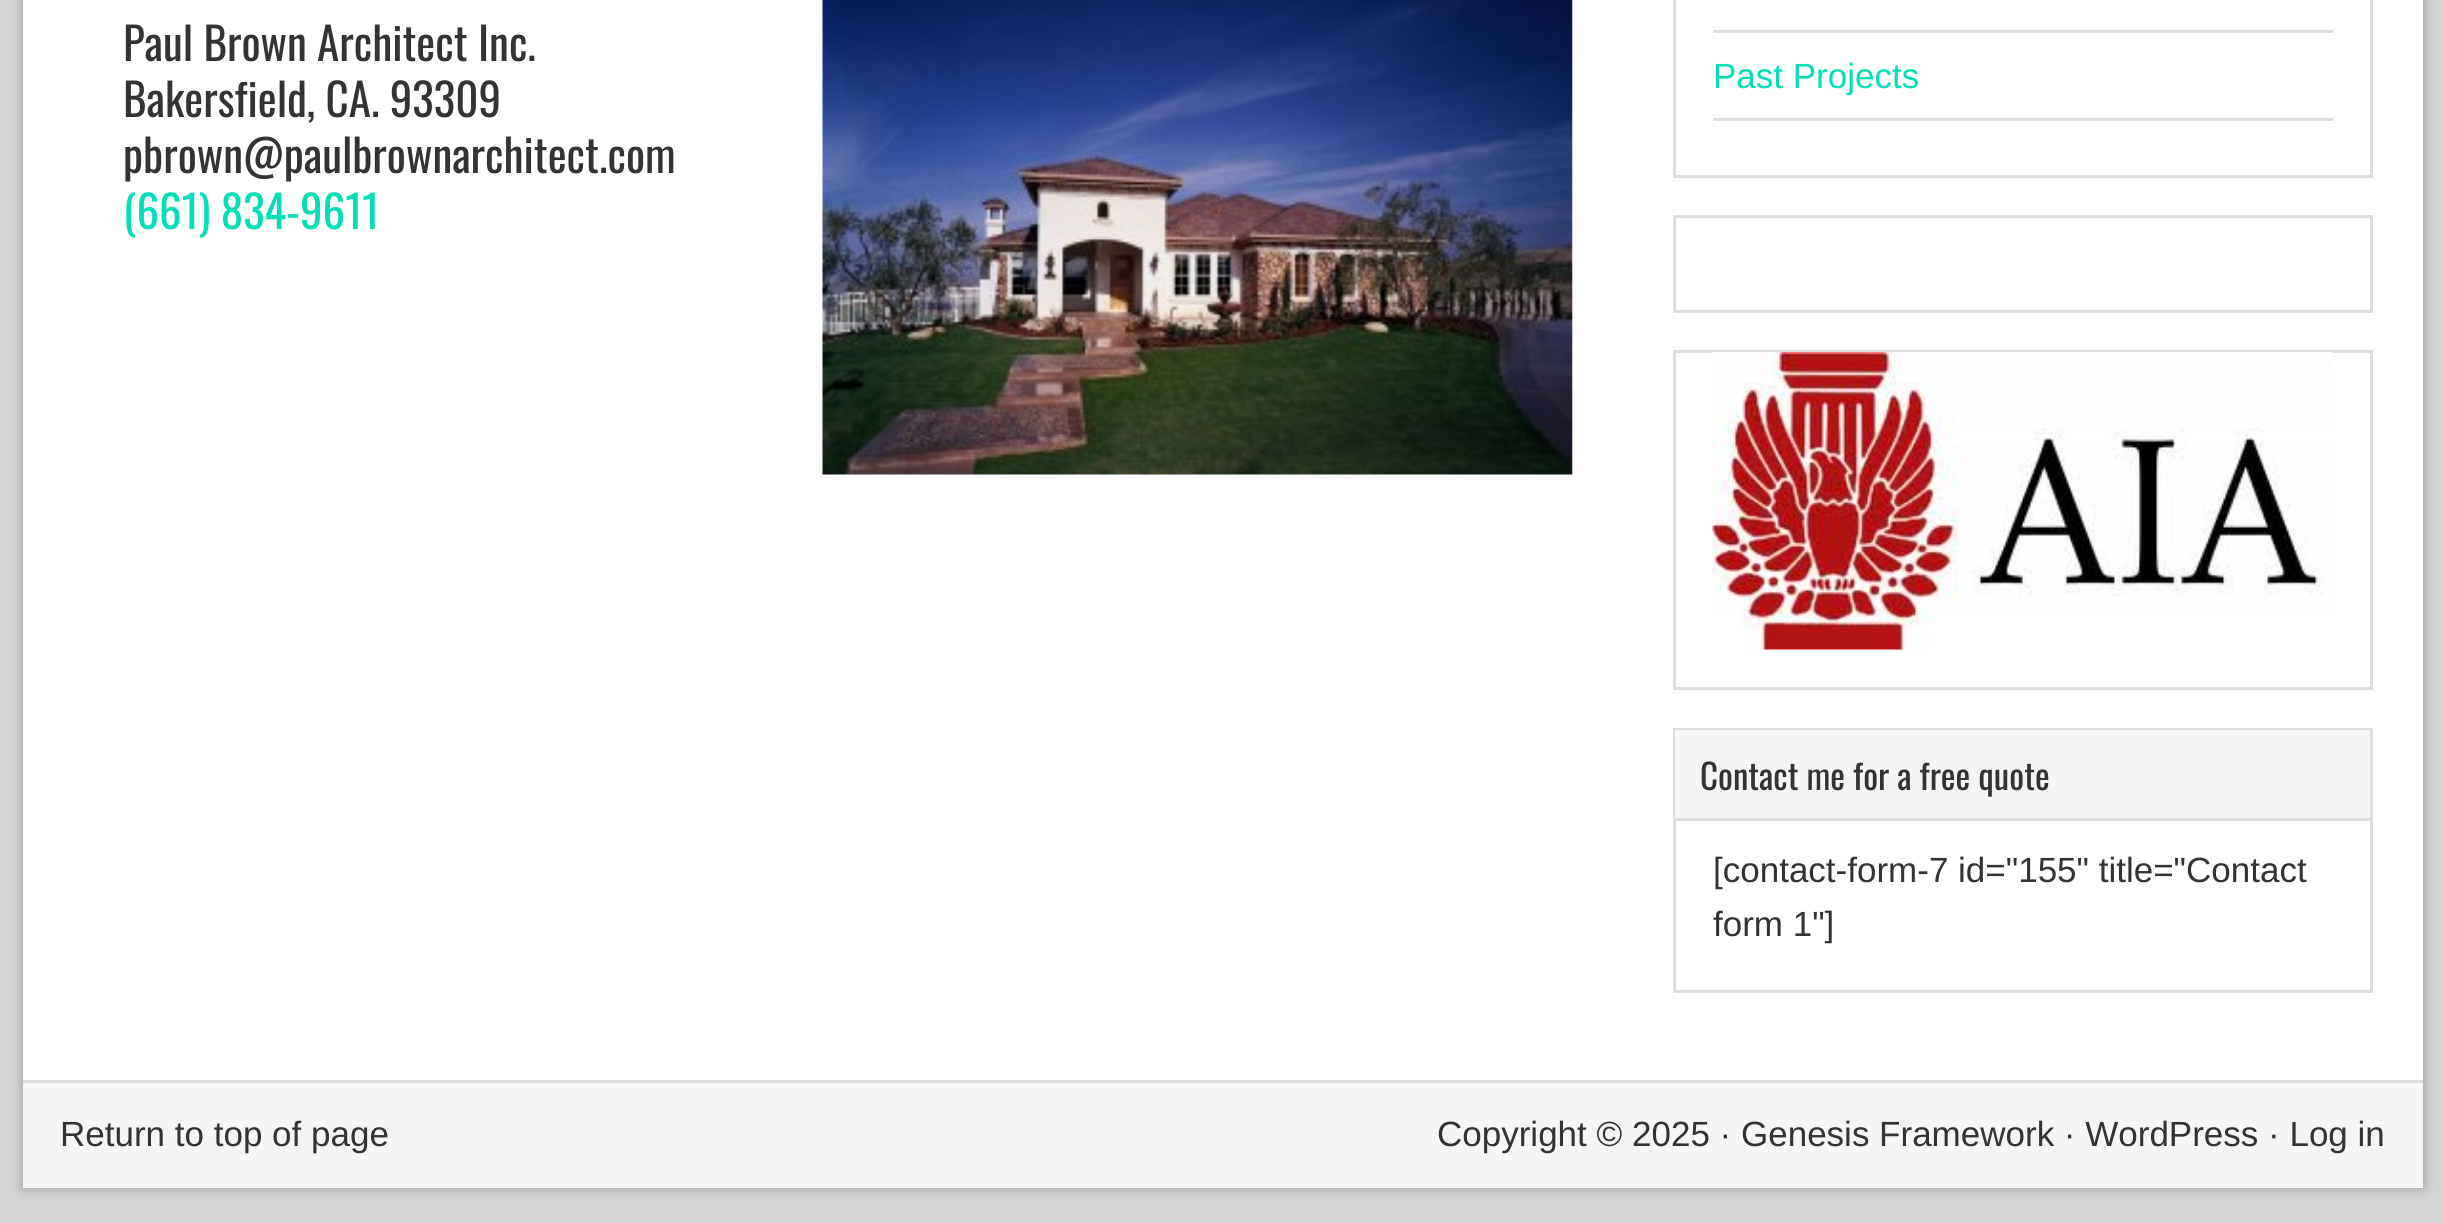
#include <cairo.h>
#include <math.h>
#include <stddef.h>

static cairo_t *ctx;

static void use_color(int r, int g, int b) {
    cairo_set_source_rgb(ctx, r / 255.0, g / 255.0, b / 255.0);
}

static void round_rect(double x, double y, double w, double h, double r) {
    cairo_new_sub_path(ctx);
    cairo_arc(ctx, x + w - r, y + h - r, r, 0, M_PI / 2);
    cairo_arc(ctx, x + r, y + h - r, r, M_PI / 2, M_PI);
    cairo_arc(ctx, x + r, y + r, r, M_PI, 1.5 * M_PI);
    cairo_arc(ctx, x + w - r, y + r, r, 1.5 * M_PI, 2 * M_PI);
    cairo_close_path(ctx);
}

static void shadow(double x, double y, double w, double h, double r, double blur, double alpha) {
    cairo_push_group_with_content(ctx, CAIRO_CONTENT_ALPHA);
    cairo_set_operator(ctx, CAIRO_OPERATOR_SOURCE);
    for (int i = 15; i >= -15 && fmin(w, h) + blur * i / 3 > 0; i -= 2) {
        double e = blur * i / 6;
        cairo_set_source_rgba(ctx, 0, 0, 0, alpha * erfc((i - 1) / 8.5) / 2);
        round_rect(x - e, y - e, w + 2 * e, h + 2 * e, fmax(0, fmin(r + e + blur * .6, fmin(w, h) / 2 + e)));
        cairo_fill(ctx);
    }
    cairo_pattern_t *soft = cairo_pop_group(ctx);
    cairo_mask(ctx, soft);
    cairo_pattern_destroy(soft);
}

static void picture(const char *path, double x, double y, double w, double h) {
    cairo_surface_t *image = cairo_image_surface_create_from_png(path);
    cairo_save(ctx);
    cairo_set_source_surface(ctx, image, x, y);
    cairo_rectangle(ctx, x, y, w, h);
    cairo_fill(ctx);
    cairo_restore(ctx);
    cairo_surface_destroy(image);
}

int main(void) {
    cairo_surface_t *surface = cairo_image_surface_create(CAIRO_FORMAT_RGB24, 2443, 1223);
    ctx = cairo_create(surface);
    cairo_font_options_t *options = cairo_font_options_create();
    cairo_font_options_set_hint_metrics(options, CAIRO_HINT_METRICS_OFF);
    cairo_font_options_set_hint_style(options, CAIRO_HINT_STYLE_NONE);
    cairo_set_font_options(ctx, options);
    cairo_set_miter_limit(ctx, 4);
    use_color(213, 213, 213);
    cairo_paint(ctx);
    use_color(153, 153, 153);
    shadow(23, -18, 2400, 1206, 0, 6, 1);
    use_color(255, 255, 255);
    cairo_rectangle(ctx, 23, 0, 2400, 1080);
    cairo_fill(ctx);
    cairo_select_font_face(ctx, "Oswald", CAIRO_FONT_SLANT_NORMAL, CAIRO_FONT_WEIGHT_NORMAL);
    cairo_set_font_size(ctx, 45);
    use_color(51, 51, 51);
    cairo_move_to(ctx, 123, 61);
    cairo_show_text(ctx, "Paul Brown Architect Inc.");
    cairo_move_to(ctx, 123, 117);
    cairo_show_text(ctx, "Bakersfield, CA. 93309");
    cairo_move_to(ctx, 123, 173);
    cairo_show_text(ctx, "pbrown@paulbrownarchitect.com");
    use_color(0, 223, 181);
    cairo_move_to(ctx, 123, 229);
    cairo_show_text(ctx, "(661) 834-9611");
    picture("img1.png", 822, 0, 751, 475);
    cairo_rectangle(ctx, 1674.5, -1.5, 697, 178);
    use_color(221, 221, 221);
    cairo_set_line_width(ctx, 3);
    cairo_stroke(ctx);
    cairo_rectangle(ctx, 1713, 30, 620, 3);
    cairo_fill(ctx);
    cairo_rectangle(ctx, 1713, 118, 620, 3);
    cairo_fill(ctx);
    cairo_select_font_face(ctx, "Liberation Sans", CAIRO_FONT_SLANT_NORMAL, CAIRO_FONT_WEIGHT_NORMAL);
    cairo_set_font_size(ctx, 35);
    use_color(0, 223, 181);
    cairo_move_to(ctx, 1713, 88);
    cairo_show_text(ctx, "Past Projects");
    cairo_rectangle(ctx, 1674.5, 216.5, 697, 95);
    use_color(221, 221, 221);
    cairo_stroke(ctx);
    cairo_rectangle(ctx, 1674.5, 351.5, 697, 337);
    cairo_stroke(ctx);
    picture("img2.png", 1712, 352, 621, 298);
    cairo_rectangle(ctx, 1674.5, 729.5, 697, 262);
    cairo_stroke(ctx);
    use_color(245, 245, 245);
    cairo_rectangle(ctx, 1675, 730, 695, 88);
    cairo_fill(ctx);
    use_color(221, 221, 221);
    cairo_rectangle(ctx, 1675, 818, 695, 3);
    cairo_fill(ctx);
    cairo_select_font_face(ctx, "Oswald", CAIRO_FONT_SLANT_NORMAL, CAIRO_FONT_WEIGHT_NORMAL);
    use_color(51, 51, 51);
    cairo_move_to(ctx, 1700, 790);
    cairo_show_text(ctx, "Contact me for a free quote");
    cairo_select_font_face(ctx, "Liberation Sans", CAIRO_FONT_SLANT_NORMAL, CAIRO_FONT_WEIGHT_NORMAL);
    cairo_move_to(ctx, 1713, 882);
    cairo_show_text(ctx, "[contact-form-7 id=\"155\" title=\"Contact");
    cairo_move_to(ctx, 1713, 936);
    cairo_show_text(ctx, "form 1\"]");
    use_color(245, 245, 245);
    cairo_rectangle(ctx, 23, 1083, 2400, 105);
    cairo_fill(ctx);
    use_color(221, 221, 221);
    cairo_rectangle(ctx, 23, 1080, 2400, 3);
    cairo_fill(ctx);
    use_color(51, 51, 51);
    cairo_move_to(ctx, 60, 1146);
    cairo_show_text(ctx, "Return to top of page");
    cairo_move_to(ctx, 1437, 1146);
    cairo_show_text(ctx, "Copyright © 2025 · Genesis Framework · WordPress · Log in");
    cairo_surface_write_to_png(surface, "result.png");
    cairo_font_options_destroy(options);
    cairo_destroy(ctx);
    cairo_surface_destroy(surface);
    return 0;
}
